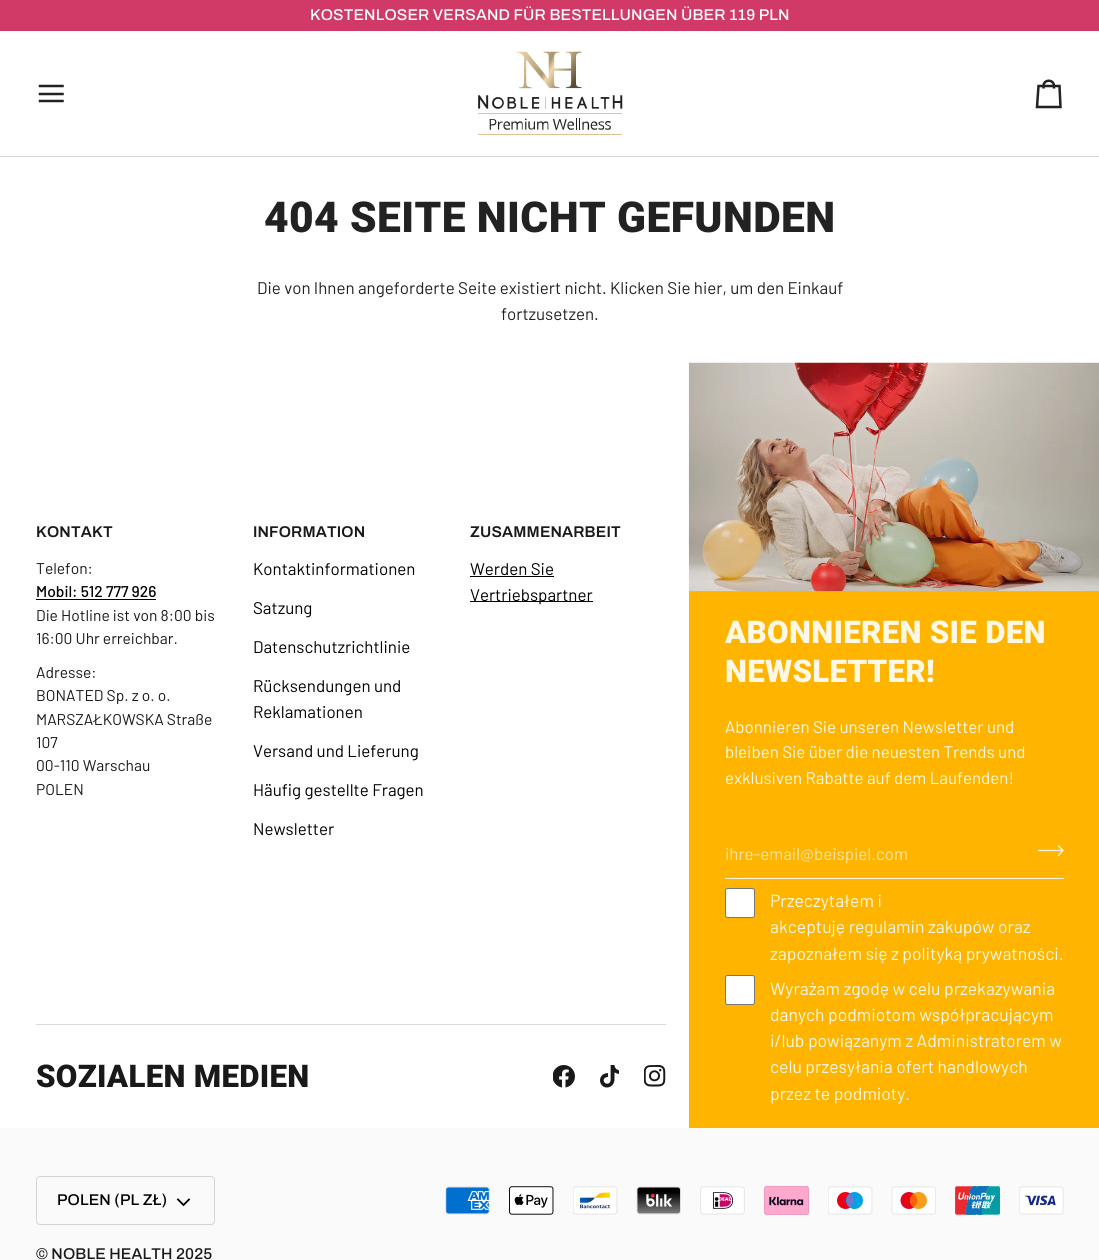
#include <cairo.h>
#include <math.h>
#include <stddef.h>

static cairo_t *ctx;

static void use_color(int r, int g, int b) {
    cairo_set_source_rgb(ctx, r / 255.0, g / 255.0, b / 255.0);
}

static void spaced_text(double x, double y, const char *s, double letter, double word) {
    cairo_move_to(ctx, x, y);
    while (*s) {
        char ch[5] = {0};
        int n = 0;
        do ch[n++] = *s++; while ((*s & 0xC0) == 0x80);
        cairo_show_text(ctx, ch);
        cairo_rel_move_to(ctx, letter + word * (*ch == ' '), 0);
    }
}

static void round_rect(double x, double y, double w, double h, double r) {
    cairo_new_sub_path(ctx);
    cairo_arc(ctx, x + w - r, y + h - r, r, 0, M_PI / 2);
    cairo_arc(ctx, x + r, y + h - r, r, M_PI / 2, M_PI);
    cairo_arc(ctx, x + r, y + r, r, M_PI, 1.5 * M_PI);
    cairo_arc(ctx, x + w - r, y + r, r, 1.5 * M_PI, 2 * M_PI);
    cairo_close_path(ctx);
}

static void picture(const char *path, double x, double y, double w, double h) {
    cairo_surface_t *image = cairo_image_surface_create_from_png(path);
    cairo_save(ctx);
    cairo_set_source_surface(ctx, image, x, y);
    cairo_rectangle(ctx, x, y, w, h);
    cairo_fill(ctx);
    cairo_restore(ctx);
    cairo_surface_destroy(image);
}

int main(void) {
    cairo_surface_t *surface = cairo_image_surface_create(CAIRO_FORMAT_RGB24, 1099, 1260);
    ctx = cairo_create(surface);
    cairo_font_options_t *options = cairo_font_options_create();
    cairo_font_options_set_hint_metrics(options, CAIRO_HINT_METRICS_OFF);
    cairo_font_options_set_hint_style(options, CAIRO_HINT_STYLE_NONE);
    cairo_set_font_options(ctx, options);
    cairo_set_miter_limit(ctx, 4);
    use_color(255, 255, 255);
    cairo_paint(ctx);
    use_color(209, 57, 103);
    cairo_rectangle(ctx, 0, 0, 1099, 31);
    cairo_fill(ctx);
    cairo_select_font_face(ctx, "Archivo Medium", CAIRO_FONT_SLANT_NORMAL, CAIRO_FONT_WEIGHT_NORMAL);
    cairo_set_font_size(ctx, 15.6);
    use_color(255, 255, 255);
    spaced_text(310, 20, "KOSTENLOSER VERSAND FÜR BESTELLUNGEN ÜBER 119 PLN", 0.15, 0);
    use_color(215, 215, 215);
    cairo_rectangle(ctx, 0, 156, 1099, 1);
    cairo_fill(ctx);
    cairo_new_path(ctx);
    cairo_move_to(ctx, 62.5, 86);
    cairo_line_to(ctx, 40, 86);
    cairo_move_to(ctx, 62.5, 94);
    cairo_line_to(ctx, 40, 94);
    cairo_move_to(ctx, 62.5, 101);
    cairo_line_to(ctx, 40, 101);
    use_color(34, 34, 34);
    cairo_set_line_width(ctx, 2.5);
    cairo_set_line_cap(ctx, CAIRO_LINE_CAP_SQUARE);
    cairo_stroke(ctx);
    picture("img1.png", 478, 51, 145, 84);
    cairo_new_path(ctx);
    cairo_move_to(ctx, 1054, 88.5);
    cairo_line_to(ctx, 1054, 86);
    cairo_line_to(ctx, 1059.5, 86);
    cairo_line_to(ctx, 1060.5, 107);
    cairo_line_to(ctx, 1037, 107);
    cairo_line_to(ctx, 1038.5, 86);
    cairo_line_to(ctx, 1043.5, 86);
    cairo_curve_to(ctx, 1043.5, 79, 1054, 79, 1054, 86);
    cairo_line_to(ctx, 1043.5, 86);
    cairo_line_to(ctx, 1043.5, 88.5);
    cairo_set_line_cap(ctx, CAIRO_LINE_CAP_BUTT);
    cairo_stroke(ctx);
    cairo_select_font_face(ctx, "Roboto Black", CAIRO_FONT_SLANT_NORMAL, CAIRO_FONT_WEIGHT_NORMAL);
    cairo_set_font_size(ctx, 42.5);
    spaced_text(264, 232, "404 SEITE NICHT GEFUNDEN", 0.4, 0);
    cairo_select_font_face(ctx, "Barlow", CAIRO_FONT_SLANT_NORMAL, CAIRO_FONT_WEIGHT_NORMAL);
    cairo_set_font_size(ctx, 16.9);
    cairo_move_to(ctx, 257, 294);
    cairo_show_text(ctx, "Die von Ihnen angeforderte Seite existiert nicht. Klicken Sie hier, um den Einkauf");
    cairo_move_to(ctx, 501, 320);
    cairo_show_text(ctx, "fortzusetzen.");
    cairo_select_font_face(ctx, "Archivo SemiBold", CAIRO_FONT_SLANT_NORMAL, CAIRO_FONT_WEIGHT_NORMAL);
    cairo_set_font_size(ctx, 15.6);
    use_color(25, 25, 25);
    spaced_text(36, 537, "KONTAKT", 0.15, 0);
    cairo_select_font_face(ctx, "Barlow", CAIRO_FONT_SLANT_NORMAL, CAIRO_FONT_WEIGHT_NORMAL);
    cairo_move_to(ctx, 36, 574);
    cairo_show_text(ctx, "Telefon:");
    cairo_select_font_face(ctx, "Barlow Medium", CAIRO_FONT_SLANT_NORMAL, CAIRO_FONT_WEIGHT_NORMAL);
    use_color(0, 0, 0);
    cairo_move_to(ctx, 36, 597);
    cairo_show_text(ctx, "Mobil: 512 777 926");
    cairo_rectangle(ctx, 36, 599, 120, 1);
    cairo_fill(ctx);
    cairo_select_font_face(ctx, "Barlow", CAIRO_FONT_SLANT_NORMAL, CAIRO_FONT_WEIGHT_NORMAL);
    use_color(25, 25, 25);
    cairo_move_to(ctx, 36, 621);
    cairo_show_text(ctx, "Die Hotline ist von 8:00 bis");
    cairo_move_to(ctx, 36, 644);
    cairo_show_text(ctx, "16:00 Uhr erreichbar.");
    cairo_move_to(ctx, 36, 678);
    cairo_show_text(ctx, "Adresse:");
    cairo_move_to(ctx, 36, 701);
    cairo_show_text(ctx, "BONATED Sp. z o. o.");
    cairo_move_to(ctx, 36, 725);
    cairo_show_text(ctx, "MARSZAŁKOWSKA Straße");
    cairo_move_to(ctx, 36, 748);
    cairo_show_text(ctx, "107");
    cairo_move_to(ctx, 36, 771);
    cairo_show_text(ctx, "00-110 Warschau");
    cairo_move_to(ctx, 36, 795);
    cairo_show_text(ctx, "POLEN");
    cairo_select_font_face(ctx, "Archivo SemiBold", CAIRO_FONT_SLANT_NORMAL, CAIRO_FONT_WEIGHT_NORMAL);
    spaced_text(253, 537, "INFORMATION", 0.15, 0);
    cairo_select_font_face(ctx, "Barlow", CAIRO_FONT_SLANT_NORMAL, CAIRO_FONT_WEIGHT_NORMAL);
    cairo_set_font_size(ctx, 16.9);
    use_color(0, 0, 0);
    cairo_move_to(ctx, 253, 575);
    cairo_show_text(ctx, "Kontaktinformationen");
    cairo_move_to(ctx, 253, 614);
    cairo_show_text(ctx, "Satzung");
    cairo_move_to(ctx, 253, 653);
    cairo_show_text(ctx, "Datenschutzrichtlinie");
    cairo_move_to(ctx, 253, 692);
    cairo_show_text(ctx, "Rücksendungen und");
    cairo_move_to(ctx, 253, 718);
    cairo_show_text(ctx, "Reklamationen");
    cairo_move_to(ctx, 253, 757);
    cairo_show_text(ctx, "Versand und Lieferung");
    cairo_move_to(ctx, 253, 796);
    cairo_show_text(ctx, "Häufig gestellte Fragen");
    cairo_move_to(ctx, 253, 835);
    cairo_show_text(ctx, "Newsletter");
    cairo_select_font_face(ctx, "Archivo SemiBold", CAIRO_FONT_SLANT_NORMAL, CAIRO_FONT_WEIGHT_NORMAL);
    cairo_set_font_size(ctx, 15.6);
    use_color(25, 25, 25);
    spaced_text(470, 537, "ZUSAMMENARBEIT", 0.15, 0);
    cairo_select_font_face(ctx, "Barlow", CAIRO_FONT_SLANT_NORMAL, CAIRO_FONT_WEIGHT_NORMAL);
    cairo_set_font_size(ctx, 16.9);
    use_color(0, 0, 0);
    cairo_move_to(ctx, 470, 575);
    cairo_show_text(ctx, "Werden Sie");
    cairo_rectangle(ctx, 470, 576, 84, 1);
    cairo_fill(ctx);
    cairo_rectangle(ctx, 470, 601, 123, 1);
    cairo_fill(ctx);
    cairo_move_to(ctx, 470, 601);
    cairo_show_text(ctx, "Vertriebspartner");
    use_color(217, 217, 217);
    cairo_rectangle(ctx, 36, 1024, 630, 1);
    cairo_fill(ctx);
    cairo_select_font_face(ctx, "Roboto Black", CAIRO_FONT_SLANT_NORMAL, CAIRO_FONT_WEIGHT_NORMAL);
    cairo_set_font_size(ctx, 31.25);
    use_color(25, 25, 25);
    spaced_text(36, 1087, "SOZIALEN MEDIEN", 0.3, 0);
    picture("img2.png", 553, 1065, 22, 23);
    picture("img3.png", 600, 1065, 19, 23);
    picture("img4.png", 644, 1065, 22, 22);
    use_color(255, 181, 0);
    cairo_rectangle(ctx, 689, 591, 410, 537);
    cairo_fill(ctx);
    picture("img5.png", 688, 362, 411, 230);
    use_color(255, 248, 230);
    spaced_text(725, 643, "ABONNIEREN SIE DEN", 0.3, 0);
    spaced_text(725, 682, "NEWSLETTER!", 0.3, 0);
    cairo_select_font_face(ctx, "Barlow", CAIRO_FONT_SLANT_NORMAL, CAIRO_FONT_WEIGHT_NORMAL);
    cairo_set_font_size(ctx, 16.9);
    cairo_move_to(ctx, 725, 733);
    cairo_show_text(ctx, "Abonnieren Sie unseren Newsletter und");
    cairo_move_to(ctx, 725, 758);
    cairo_show_text(ctx, "bleiben Sie über die neuesten Trends und");
    cairo_move_to(ctx, 725, 784);
    cairo_show_text(ctx, "exklusiven Rabatte auf dem Laufenden!");
    cairo_rectangle(ctx, 725, 878, 339, 1);
    cairo_fill(ctx);
    use_color(255, 228, 161);
    cairo_move_to(ctx, 725, 860);
    cairo_show_text(ctx, "ihre-email@beispiel.com");
    cairo_new_path(ctx);
    cairo_move_to(ctx, 1058, 845.5);
    cairo_line_to(ctx, 1063, 850.5);
    cairo_line_to(ctx, 1058, 856);
    cairo_move_to(ctx, 1038, 850.5);
    cairo_line_to(ctx, 1063, 850.5);
    use_color(255, 248, 230);
    cairo_set_line_width(ctx, 1.3);
    cairo_stroke(ctx);
    use_color(255, 255, 255);
    round_rect(725.5, 888.5, 29, 29, 2);
    cairo_fill_preserve(ctx);
    use_color(118, 118, 118);
    cairo_set_line_width(ctx, 1);
    cairo_stroke(ctx);
    cairo_set_font_size(ctx, 17.5);
    use_color(255, 248, 230);
    cairo_move_to(ctx, 770, 907);
    cairo_show_text(ctx, "Przeczytałem i");
    cairo_move_to(ctx, 770, 933);
    cairo_show_text(ctx, "akceptuję regulamin zakupów oraz");
    cairo_move_to(ctx, 770, 960);
    cairo_show_text(ctx, "zapoznałem się z polityką prywatności.");
    use_color(255, 255, 255);
    round_rect(725.5, 975.5, 29, 29, 2);
    cairo_fill_preserve(ctx);
    use_color(118, 118, 118);
    cairo_stroke(ctx);
    use_color(255, 248, 230);
    cairo_move_to(ctx, 770, 995);
    cairo_show_text(ctx, "Wyrażam zgodę w celu przekazywania");
    cairo_move_to(ctx, 770, 1021);
    cairo_show_text(ctx, "danych podmiotom współpracującym");
    cairo_move_to(ctx, 770, 1047);
    cairo_show_text(ctx, "i/lub powiązanym z Administratorem w");
    cairo_move_to(ctx, 770, 1073);
    cairo_show_text(ctx, "celu przesyłania ofert handlowych");
    cairo_move_to(ctx, 770, 1100);
    cairo_show_text(ctx, "przez te podmioty.");
    use_color(250, 250, 250);
    cairo_rectangle(ctx, 0, 1128, 1099, 132);
    cairo_fill(ctx);
    round_rect(36.5, 1176.5, 178, 48, 3.5);
    use_color(213, 213, 213);
    cairo_stroke(ctx);
    cairo_select_font_face(ctx, "Archivo Medium", CAIRO_FONT_SLANT_NORMAL, CAIRO_FONT_WEIGHT_NORMAL);
    cairo_set_font_size(ctx, 15.6);
    use_color(0, 0, 0);
    spaced_text(57, 1205, "POLEN (PL ZŁ)", 0.15, 0);
    cairo_new_path(ctx);
    cairo_move_to(ctx, 178, 1199.5);
    cairo_line_to(ctx, 183.5, 1205);
    cairo_line_to(ctx, 189, 1199.5);
    cairo_set_line_width(ctx, 1.8);
    cairo_set_line_cap(ctx, CAIRO_LINE_CAP_SQUARE);
    cairo_stroke(ctx);
    picture("img6.png", 445, 1186, 45, 29);
    picture("img7.png", 509, 1186, 45, 29);
    picture("img8.png", 573, 1186, 45, 29);
    picture("img9.png", 636, 1186, 45, 29);
    picture("img10.png", 700, 1186, 45, 29);
    picture("img11.png", 764, 1186, 45, 29);
    picture("img12.png", 828, 1186, 45, 29);
    picture("img13.png", 891, 1186, 45, 29);
    picture("img14.png", 955, 1186, 45, 29);
    picture("img15.png", 1019, 1186, 45, 29);
    use_color(25, 25, 25);
    spaced_text(36, 1259, "© NOBLE HEALTH", 0.15, 0);
    spaced_text(176, 1259, "2025", 0.15, 0);
    cairo_surface_write_to_png(surface, "result.png");
    cairo_font_options_destroy(options);
    cairo_destroy(ctx);
    cairo_surface_destroy(surface);
    return 0;
}
